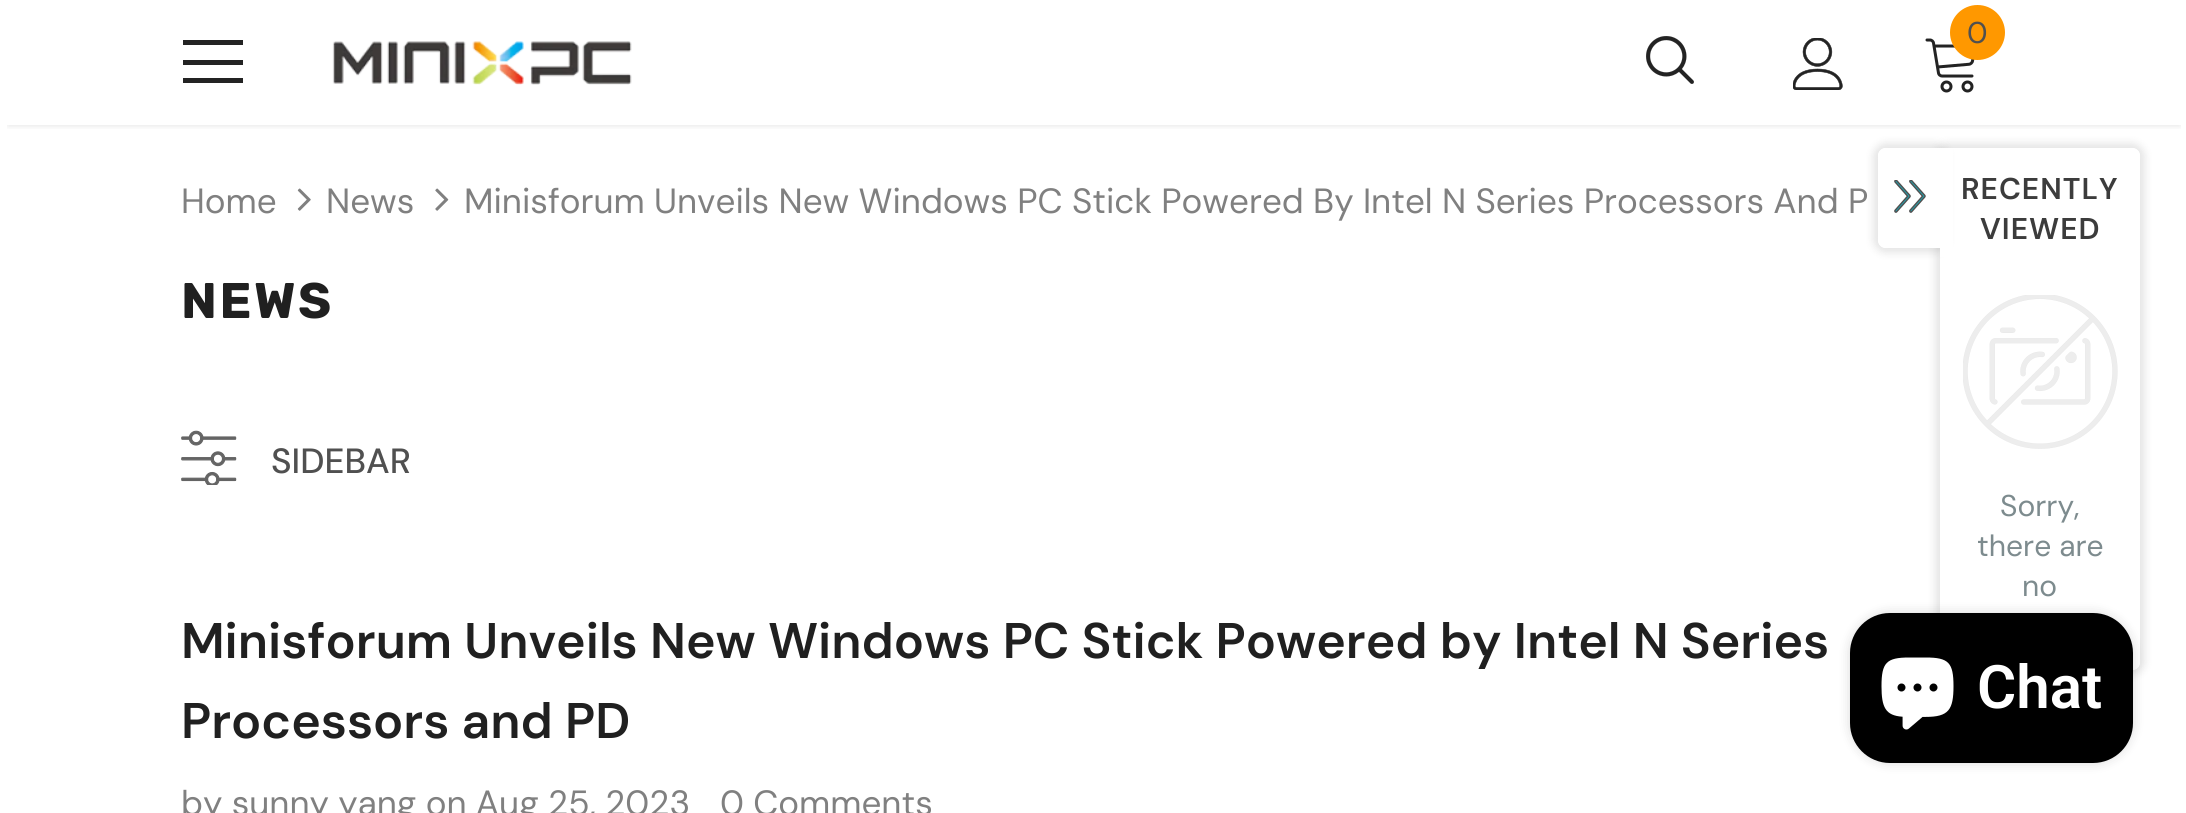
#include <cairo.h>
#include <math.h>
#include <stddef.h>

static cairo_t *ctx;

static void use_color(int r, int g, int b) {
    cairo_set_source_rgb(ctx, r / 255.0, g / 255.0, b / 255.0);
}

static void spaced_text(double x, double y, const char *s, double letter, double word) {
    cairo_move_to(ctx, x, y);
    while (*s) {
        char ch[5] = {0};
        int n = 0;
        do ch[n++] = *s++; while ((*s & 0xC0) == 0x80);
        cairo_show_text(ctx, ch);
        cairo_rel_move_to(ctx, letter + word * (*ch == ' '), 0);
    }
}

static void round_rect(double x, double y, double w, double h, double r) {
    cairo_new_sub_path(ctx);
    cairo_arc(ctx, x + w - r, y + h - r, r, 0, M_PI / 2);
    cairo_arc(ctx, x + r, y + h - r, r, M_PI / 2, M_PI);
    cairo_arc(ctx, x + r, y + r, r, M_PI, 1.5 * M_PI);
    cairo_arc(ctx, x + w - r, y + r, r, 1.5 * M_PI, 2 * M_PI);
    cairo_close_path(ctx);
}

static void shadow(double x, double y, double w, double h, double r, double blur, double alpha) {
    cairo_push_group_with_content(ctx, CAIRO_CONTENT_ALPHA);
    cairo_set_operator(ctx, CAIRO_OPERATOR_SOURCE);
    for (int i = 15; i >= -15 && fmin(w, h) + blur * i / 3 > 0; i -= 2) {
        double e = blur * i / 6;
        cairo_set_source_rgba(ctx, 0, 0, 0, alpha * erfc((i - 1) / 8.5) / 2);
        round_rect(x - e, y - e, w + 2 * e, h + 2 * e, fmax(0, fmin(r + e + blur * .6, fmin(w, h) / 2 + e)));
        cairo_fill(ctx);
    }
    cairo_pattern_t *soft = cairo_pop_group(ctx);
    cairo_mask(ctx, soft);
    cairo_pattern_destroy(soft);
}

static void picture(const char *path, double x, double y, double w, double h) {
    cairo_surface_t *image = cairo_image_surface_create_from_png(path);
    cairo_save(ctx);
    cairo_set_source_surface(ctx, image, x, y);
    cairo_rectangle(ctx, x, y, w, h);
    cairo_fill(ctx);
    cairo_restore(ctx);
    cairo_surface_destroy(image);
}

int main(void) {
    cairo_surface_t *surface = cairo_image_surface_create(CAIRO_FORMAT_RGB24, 2186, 813);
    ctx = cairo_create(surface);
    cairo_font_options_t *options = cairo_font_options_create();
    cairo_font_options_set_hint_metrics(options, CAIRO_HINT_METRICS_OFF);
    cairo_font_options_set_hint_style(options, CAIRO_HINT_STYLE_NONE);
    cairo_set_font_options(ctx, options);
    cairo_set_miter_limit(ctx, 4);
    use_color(255, 255, 255);
    cairo_paint(ctx);
    cairo_save(ctx);
    cairo_rectangle(ctx, 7, 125, 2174, 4);
    cairo_clip(ctx);
    use_color(0, 0, 0);
    shadow(8, 15, 2172, 110, 0, 4, 0.12);
    cairo_restore(ctx);
    picture("img1.png", 1925, 38, 50, 55);
    use_color(255, 152, 0);
    cairo_arc(ctx, 1977.5, 32.5, 27.5, 0, 2 * M_PI);
    cairo_fill(ctx);
    cairo_select_font_face(ctx, "DM Sans", CAIRO_FONT_SLANT_NORMAL, CAIRO_FONT_WEIGHT_NORMAL);
    cairo_set_font_size(ctx, 30);
    use_color(80, 80, 80);
    cairo_move_to(ctx, 1967, 43);
    cairo_show_text(ctx, "0");
    picture("img2.png", 1646, 36, 48, 48);
    picture("img3.png", 1793, 38, 50, 52);
    use_color(35, 35, 35);
    cairo_rectangle(ctx, 183, 40, 60, 5);
    cairo_fill(ctx);
    cairo_rectangle(ctx, 183, 60, 60, 5);
    cairo_fill(ctx);
    cairo_rectangle(ctx, 183, 78, 60, 5);
    cairo_fill(ctx);
    picture("img4.png", 332, 41, 300, 44);
    cairo_set_font_size(ctx, 35);
    use_color(128, 128, 128);
    cairo_move_to(ctx, 181, 213);
    cairo_show_text(ctx, "Home");
    picture("img5.png", 297, 188, 14, 23);
    cairo_move_to(ctx, 326, 213);
    cairo_show_text(ctx, "News");
    picture("img6.png", 435, 188, 14, 23);
    cairo_move_to(ctx, 464, 213);
    cairo_show_text(ctx, "Minisforum Unveils New Windows PC Stick Powered By Intel N Series Processors And P");
    cairo_select_font_face(ctx, "Rubik", CAIRO_FONT_SLANT_NORMAL, CAIRO_FONT_WEIGHT_BOLD);
    cairo_set_font_size(ctx, 50);
    use_color(32, 32, 32);
    spaced_text(181, 318, "NEWS", 2.5, 0);
    picture("img7.png", 181, 430, 56, 55);
    cairo_select_font_face(ctx, "DM Sans Medium", CAIRO_FONT_SLANT_NORMAL, CAIRO_FONT_WEIGHT_NORMAL);
    cairo_set_font_size(ctx, 35);
    use_color(80, 80, 80);
    cairo_move_to(ctx, 271, 473);
    cairo_show_text(ctx, "SIDEBAR");
    cairo_select_font_face(ctx, "DM Sans SemiBold", CAIRO_FONT_SLANT_NORMAL, CAIRO_FONT_WEIGHT_NORMAL);
    cairo_set_font_size(ctx, 50);
    use_color(32, 32, 32);
    cairo_move_to(ctx, 181, 658);
    cairo_show_text(ctx, "Minisforum Unveils New Windows PC Stick Powered by Intel N Series");
    cairo_move_to(ctx, 181, 738);
    cairo_show_text(ctx, "Processors and PD");
    cairo_select_font_face(ctx, "DM Sans", CAIRO_FONT_SLANT_NORMAL, CAIRO_FONT_WEIGHT_NORMAL);
    cairo_set_font_size(ctx, 35);
    use_color(128, 128, 128);
    cairo_move_to(ctx, 181, 815);
    cairo_show_text(ctx, "by sunny yang on Aug 25, 2023");
    cairo_move_to(ctx, 720, 815);
    cairo_show_text(ctx, "0 Comments");
    cairo_save(ctx);
    cairo_set_fill_rule(ctx, CAIRO_FILL_RULE_EVEN_ODD);
    cairo_new_path(ctx);
    cairo_move_to(ctx, 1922, 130);
    cairo_line_to(ctx, 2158, 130);
    cairo_line_to(ctx, 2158, 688);
    cairo_line_to(ctx, 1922, 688);
    cairo_close_path(ctx);
    cairo_move_to(ctx, 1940, 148);
    cairo_line_to(ctx, 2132, 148);
    cairo_curve_to(ctx, 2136.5, 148, 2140, 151.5, 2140, 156);
    cairo_line_to(ctx, 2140, 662);
    cairo_curve_to(ctx, 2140, 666.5, 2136.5, 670, 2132, 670);
    cairo_line_to(ctx, 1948, 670);
    cairo_curve_to(ctx, 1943.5, 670, 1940, 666.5, 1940, 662);
    cairo_close_path(ctx);
    cairo_clip(ctx);
    use_color(0, 0, 0);
    shadow(1935, 143, 210, 532, 13, 4, 0.1);
    cairo_restore(ctx);
    use_color(255, 255, 255);
    cairo_new_path(ctx);
    cairo_move_to(ctx, 1940, 148);
    cairo_line_to(ctx, 2132, 148);
    cairo_curve_to(ctx, 2136.5, 148, 2140, 151.5, 2140, 156);
    cairo_line_to(ctx, 2140, 662);
    cairo_curve_to(ctx, 2140, 666.5, 2136.5, 670, 2132, 670);
    cairo_line_to(ctx, 1948, 670);
    cairo_curve_to(ctx, 1943.5, 670, 1940, 666.5, 1940, 662);
    cairo_close_path(ctx);
    cairo_fill(ctx);
    cairo_save(ctx);
    cairo_set_fill_rule(ctx, CAIRO_FILL_RULE_EVEN_ODD);
    cairo_new_path(ctx);
    cairo_move_to(ctx, 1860, 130);
    cairo_line_to(ctx, 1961, 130);
    cairo_line_to(ctx, 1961, 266);
    cairo_line_to(ctx, 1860, 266);
    cairo_close_path(ctx);
    cairo_move_to(ctx, 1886, 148);
    cairo_line_to(ctx, 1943, 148);
    cairo_line_to(ctx, 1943, 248);
    cairo_line_to(ctx, 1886, 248);
    cairo_curve_to(ctx, 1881.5, 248, 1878, 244.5, 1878, 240);
    cairo_line_to(ctx, 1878, 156);
    cairo_curve_to(ctx, 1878, 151.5, 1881.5, 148, 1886, 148);
    cairo_close_path(ctx);
    cairo_clip(ctx);
    use_color(0, 0, 0);
    shadow(1873, 143, 75, 110, 13, 4, 0.1);
    cairo_restore(ctx);
    cairo_new_path(ctx);
    cairo_move_to(ctx, 1886, 148);
    cairo_line_to(ctx, 1943, 148);
    cairo_line_to(ctx, 1943, 248);
    cairo_line_to(ctx, 1886, 248);
    cairo_curve_to(ctx, 1881.5, 248, 1878, 244.5, 1878, 240);
    cairo_line_to(ctx, 1878, 156);
    cairo_curve_to(ctx, 1878, 151.5, 1881.5, 148, 1886, 148);
    cairo_close_path(ctx);
    cairo_fill(ctx);
    picture("img8.png", 1894, 180, 32, 33);
    cairo_rectangle(ctx, 1940, 148, 13, 109);
    cairo_fill(ctx);
    cairo_select_font_face(ctx, "DM Sans SemiBold", CAIRO_FONT_SLANT_NORMAL, CAIRO_FONT_WEIGHT_NORMAL);
    cairo_set_font_size(ctx, 30);
    use_color(60, 60, 60);
    spaced_text(1961, 199, "RECENTLY", 1, 0);
    spaced_text(1980, 239, "VIEWED", 1, 0);
    picture("img9.png", 1963, 295, 155, 154);
    cairo_select_font_face(ctx, "DM Sans", CAIRO_FONT_SLANT_NORMAL, CAIRO_FONT_WEIGHT_NORMAL);
    use_color(125, 139, 142);
    cairo_move_to(ctx, 2000, 516);
    cairo_show_text(ctx, "Sorry,");
    cairo_move_to(ctx, 1977, 556);
    cairo_show_text(ctx, "there are");
    cairo_move_to(ctx, 2022, 596);
    cairo_show_text(ctx, "no");
    use_color(0, 0, 0);
    shadow(1850, 613, 283, 150, 40, 6, 0.15);
    use_color(0, 0, 0);
    round_rect(1850, 613, 283, 150, 40);
    cairo_fill(ctx);
    picture("img10.png", 1881, 657, 73, 73);
    cairo_select_font_face(ctx, "Roboto SemiBold", CAIRO_FONT_SLANT_NORMAL, CAIRO_FONT_WEIGHT_NORMAL);
    cairo_set_font_size(ctx, 60);
    use_color(255, 255, 255);
    cairo_move_to(ctx, 1977, 708);
    cairo_show_text(ctx, "Chat");
    cairo_surface_write_to_png(surface, "result.png");
    cairo_font_options_destroy(options);
    cairo_destroy(ctx);
    cairo_surface_destroy(surface);
    return 0;
}
